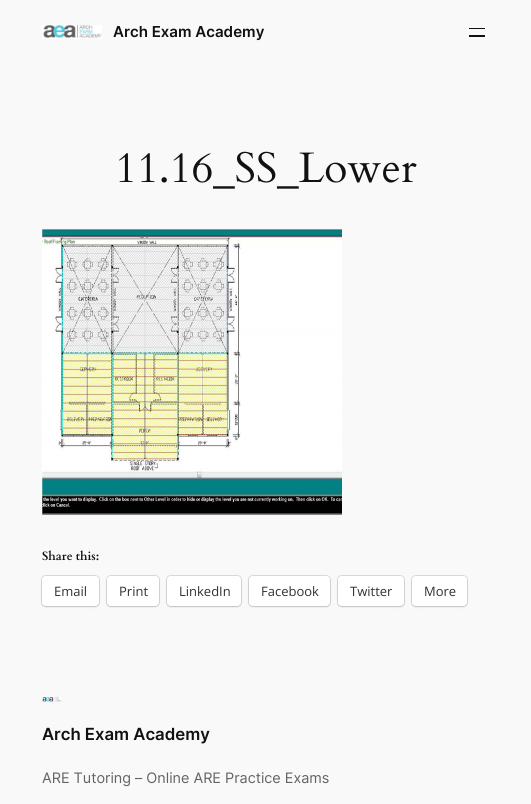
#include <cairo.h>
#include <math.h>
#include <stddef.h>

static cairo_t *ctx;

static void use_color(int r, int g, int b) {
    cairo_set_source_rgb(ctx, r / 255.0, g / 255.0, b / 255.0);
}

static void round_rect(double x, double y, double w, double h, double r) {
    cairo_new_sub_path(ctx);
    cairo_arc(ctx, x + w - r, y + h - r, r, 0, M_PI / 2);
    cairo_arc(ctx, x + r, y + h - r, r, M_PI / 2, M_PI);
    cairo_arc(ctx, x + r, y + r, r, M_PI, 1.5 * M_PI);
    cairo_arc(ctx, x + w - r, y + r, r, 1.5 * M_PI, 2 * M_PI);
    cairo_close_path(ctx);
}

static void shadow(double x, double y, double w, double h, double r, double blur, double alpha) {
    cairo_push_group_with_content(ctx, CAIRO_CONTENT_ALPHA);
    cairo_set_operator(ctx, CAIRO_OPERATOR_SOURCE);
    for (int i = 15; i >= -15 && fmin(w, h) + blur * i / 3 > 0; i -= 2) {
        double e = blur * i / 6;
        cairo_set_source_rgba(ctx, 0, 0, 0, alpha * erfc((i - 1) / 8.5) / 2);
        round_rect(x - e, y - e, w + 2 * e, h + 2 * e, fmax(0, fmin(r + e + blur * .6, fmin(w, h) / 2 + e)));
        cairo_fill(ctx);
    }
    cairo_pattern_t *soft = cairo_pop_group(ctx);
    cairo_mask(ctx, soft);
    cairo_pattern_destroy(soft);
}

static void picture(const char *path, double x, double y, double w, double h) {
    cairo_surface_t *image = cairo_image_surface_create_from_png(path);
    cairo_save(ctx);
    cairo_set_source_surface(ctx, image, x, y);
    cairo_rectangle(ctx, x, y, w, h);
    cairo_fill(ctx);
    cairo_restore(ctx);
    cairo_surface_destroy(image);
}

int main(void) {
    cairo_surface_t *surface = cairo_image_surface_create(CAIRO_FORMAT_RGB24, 531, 804);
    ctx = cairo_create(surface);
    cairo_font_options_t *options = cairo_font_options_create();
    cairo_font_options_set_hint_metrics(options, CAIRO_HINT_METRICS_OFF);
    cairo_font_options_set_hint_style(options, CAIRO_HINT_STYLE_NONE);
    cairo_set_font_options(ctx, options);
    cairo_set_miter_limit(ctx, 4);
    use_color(249, 249, 249);
    cairo_paint(ctx);
    picture("img1.png", 42, 25, 60, 14);
    cairo_select_font_face(ctx, "Inter SemiBold", CAIRO_FONT_SLANT_NORMAL, CAIRO_FONT_WEIGHT_NORMAL);
    cairo_set_font_size(ctx, 15.1);
    use_color(17, 17, 17);
    cairo_move_to(ctx, 113, 37);
    cairo_show_text(ctx, "Arch Exam Academy");
    cairo_rectangle(ctx, 469, 28, 16, 1);
    cairo_fill(ctx);
    cairo_rectangle(ctx, 469, 35, 16, 2);
    cairo_fill(ctx);
    picture("img2.png", 119, 151, 298, 38);
    picture("img3.png", 42, 229, 300, 286);
    cairo_select_font_face(ctx, "Cardo", CAIRO_FONT_SLANT_NORMAL, CAIRO_FONT_WEIGHT_BOLD);
    cairo_set_font_size(ctx, 12);
    cairo_move_to(ctx, 42, 560);
    cairo_show_text(ctx, "Share this:");
    round_rect(41.5, 575.5, 58, 31, 4.5);
    use_color(219, 219, 219);
    cairo_set_line_width(ctx, 1);
    cairo_stroke(ctx);
    use_color(0, 0, 0);
    shadow(42, 577, 57, 30, 4, 1, 0.12);
    use_color(255, 255, 255);
    round_rect(42, 576, 57, 30, 4);
    cairo_fill(ctx);
    cairo_select_font_face(ctx, "Open Sans", CAIRO_FONT_SLANT_NORMAL, CAIRO_FONT_WEIGHT_NORMAL);
    cairo_set_font_size(ctx, 13);
    use_color(44, 51, 56);
    cairo_move_to(ctx, 54, 596);
    cairo_show_text(ctx, "Email");
    round_rect(106.5, 575.5, 53, 31, 4.5);
    use_color(219, 219, 219);
    cairo_stroke(ctx);
    use_color(0, 0, 0);
    shadow(107, 577, 52, 30, 4, 1, 0.12);
    use_color(255, 255, 255);
    round_rect(107, 576, 52, 30, 4);
    cairo_fill(ctx);
    use_color(44, 51, 56);
    cairo_move_to(ctx, 119, 596);
    cairo_show_text(ctx, "Print");
    round_rect(166.5, 575.5, 75, 31, 4.5);
    use_color(219, 219, 219);
    cairo_stroke(ctx);
    use_color(0, 0, 0);
    shadow(167, 577, 74, 30, 4, 1, 0.12);
    use_color(255, 255, 255);
    round_rect(167, 576, 74, 30, 4);
    cairo_fill(ctx);
    use_color(44, 51, 56);
    cairo_move_to(ctx, 179, 596);
    cairo_show_text(ctx, "LinkedIn");
    round_rect(248.5, 575.5, 82, 31, 4.5);
    use_color(219, 219, 219);
    cairo_stroke(ctx);
    use_color(0, 0, 0);
    shadow(249, 577, 81, 30, 4, 1, 0.12);
    use_color(255, 255, 255);
    round_rect(249, 576, 81, 30, 4);
    cairo_fill(ctx);
    use_color(44, 51, 56);
    cairo_move_to(ctx, 261, 596);
    cairo_show_text(ctx, "Facebook");
    round_rect(337.5, 575.5, 67, 31, 4.5);
    use_color(219, 219, 219);
    cairo_stroke(ctx);
    use_color(0, 0, 0);
    shadow(338, 577, 66, 30, 4, 1, 0.12);
    use_color(255, 255, 255);
    round_rect(338, 576, 66, 30, 4);
    cairo_fill(ctx);
    use_color(44, 51, 56);
    cairo_move_to(ctx, 350, 596);
    cairo_show_text(ctx, "Twitter");
    round_rect(411.5, 575.5, 56, 31, 4.5);
    use_color(219, 219, 219);
    cairo_stroke(ctx);
    use_color(0, 0, 0);
    shadow(412, 577, 55, 30, 4, 1, 0.12);
    use_color(255, 255, 255);
    round_rect(412, 576, 55, 30, 4);
    cairo_fill(ctx);
    use_color(44, 51, 56);
    cairo_move_to(ctx, 424, 596);
    cairo_show_text(ctx, "More");
    picture("img4.png", 42, 697, 20, 5);
    cairo_select_font_face(ctx, "Inter SemiBold", CAIRO_FONT_SLANT_NORMAL, CAIRO_FONT_WEIGHT_NORMAL);
    cairo_set_font_size(ctx, 16.75);
    use_color(17, 17, 17);
    cairo_move_to(ctx, 42, 740);
    cairo_show_text(ctx, "Arch Exam Academy");
    cairo_select_font_face(ctx, "Inter", CAIRO_FONT_SLANT_NORMAL, CAIRO_FONT_WEIGHT_NORMAL);
    cairo_set_font_size(ctx, 14.4);
    use_color(99, 99, 99);
    cairo_move_to(ctx, 42, 783);
    cairo_show_text(ctx, "ARE Tutoring – Online ARE Practice Exams");
    cairo_surface_write_to_png(surface, "result.png");
    cairo_font_options_destroy(options);
    cairo_destroy(ctx);
    cairo_surface_destroy(surface);
    return 0;
}
